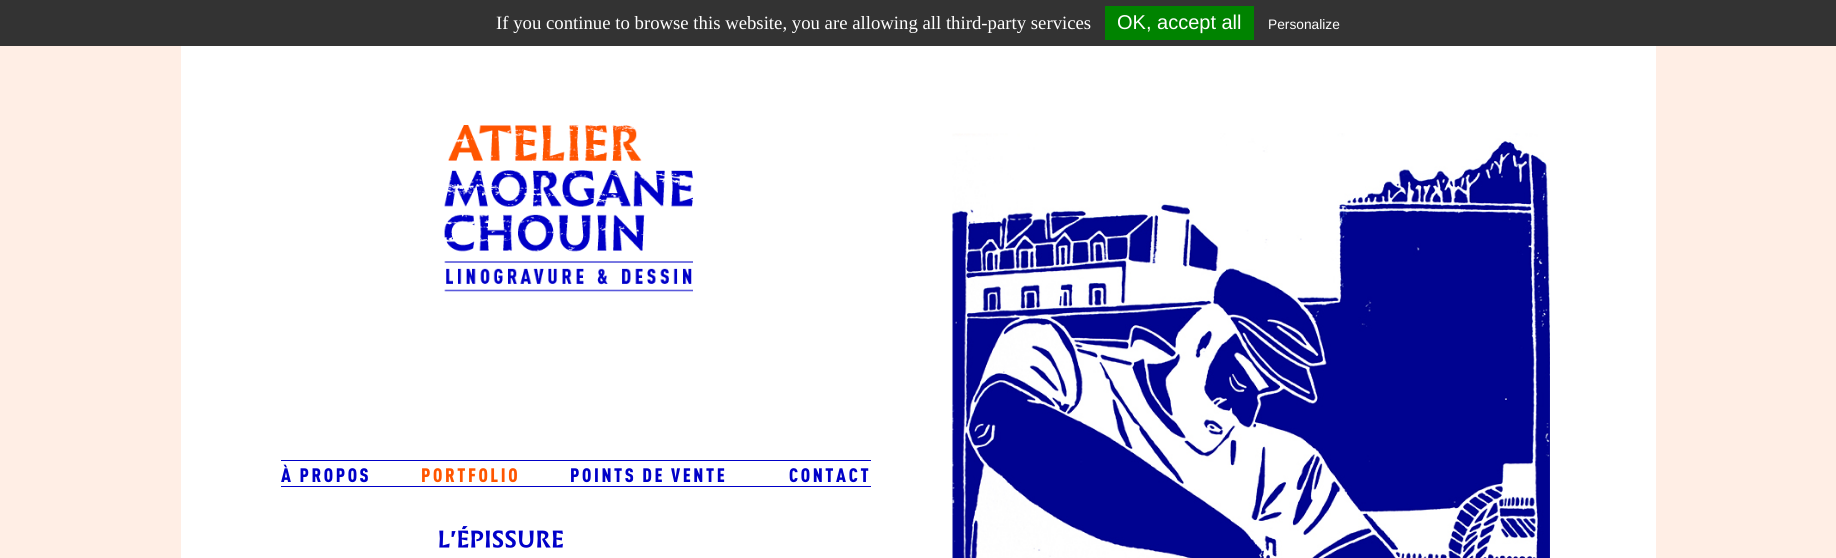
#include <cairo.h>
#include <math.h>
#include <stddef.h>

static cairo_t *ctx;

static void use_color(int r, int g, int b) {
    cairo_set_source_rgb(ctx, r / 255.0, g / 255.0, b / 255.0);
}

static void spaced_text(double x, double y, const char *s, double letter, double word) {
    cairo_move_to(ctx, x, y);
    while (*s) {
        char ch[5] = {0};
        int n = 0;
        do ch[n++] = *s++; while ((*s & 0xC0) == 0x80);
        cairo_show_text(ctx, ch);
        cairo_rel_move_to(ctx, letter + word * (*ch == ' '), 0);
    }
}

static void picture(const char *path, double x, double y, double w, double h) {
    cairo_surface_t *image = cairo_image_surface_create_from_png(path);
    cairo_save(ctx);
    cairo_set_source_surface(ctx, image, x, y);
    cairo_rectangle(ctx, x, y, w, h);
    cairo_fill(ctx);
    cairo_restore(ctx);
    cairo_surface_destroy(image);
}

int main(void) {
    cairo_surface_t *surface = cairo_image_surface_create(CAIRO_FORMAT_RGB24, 1836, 558);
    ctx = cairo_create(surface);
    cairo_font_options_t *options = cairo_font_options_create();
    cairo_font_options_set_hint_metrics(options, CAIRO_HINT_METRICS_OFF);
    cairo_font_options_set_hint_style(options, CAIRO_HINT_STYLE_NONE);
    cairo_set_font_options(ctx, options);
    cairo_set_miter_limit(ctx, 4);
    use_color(255, 238, 229);
    cairo_paint(ctx);
    use_color(51, 51, 51);
    cairo_rectangle(ctx, 0, 0, 1836, 46);
    cairo_fill(ctx);
    cairo_select_font_face(ctx, "Liberation Serif", CAIRO_FONT_SLANT_NORMAL, CAIRO_FONT_WEIGHT_NORMAL);
    cairo_set_font_size(ctx, 18.75);
    use_color(255, 255, 255);
    cairo_move_to(ctx, 496, 29);
    cairo_show_text(ctx, "If you continue to browse this website, you are allowing all third-party services");
    use_color(0, 131, 0);
    cairo_rectangle(ctx, 1105, 6, 149, 34);
    cairo_fill(ctx);
    cairo_select_font_face(ctx, "Liberation Sans", CAIRO_FONT_SLANT_NORMAL, CAIRO_FONT_WEIGHT_NORMAL);
    cairo_set_font_size(ctx, 20);
    use_color(255, 255, 255);
    cairo_move_to(ctx, 1117, 29);
    cairo_show_text(ctx, "OK, accept all");
    cairo_set_font_size(ctx, 13.75);
    cairo_move_to(ctx, 1268, 29);
    cairo_show_text(ctx, "Personalize");
    cairo_rectangle(ctx, 181, 46, 1475, 512);
    cairo_fill(ctx);
    use_color(0, 0, 200);
    cairo_rectangle(ctx, 281, 486, 590, 1);
    cairo_fill(ctx);
    picture("img1.png", 444, 125, 249, 167);
    cairo_rectangle(ctx, 281, 460, 590, 1);
    cairo_fill(ctx);
    cairo_select_font_face(ctx, "DIN Black", CAIRO_FONT_SLANT_NORMAL, CAIRO_FONT_WEIGHT_NORMAL);
    cairo_set_font_size(ctx, 19.25);
    spaced_text(281, 482, "À PROPOS", 2.6, 0);
    use_color(255, 85, 0);
    spaced_text(421, 482, "PORTFOLIO", 2.6, 0);
    use_color(0, 0, 200);
    spaced_text(570, 482, "POINTS DE VENTE", 2.6, 0);
    spaced_text(789, 482, "CONTACT", 2.6, 0);
    picture("img2.png", 439, 526, 124, 22);
    picture("img3.png", 952, 133, 598, 425);
    cairo_surface_write_to_png(surface, "result.png");
    cairo_font_options_destroy(options);
    cairo_destroy(ctx);
    cairo_surface_destroy(surface);
    return 0;
}
